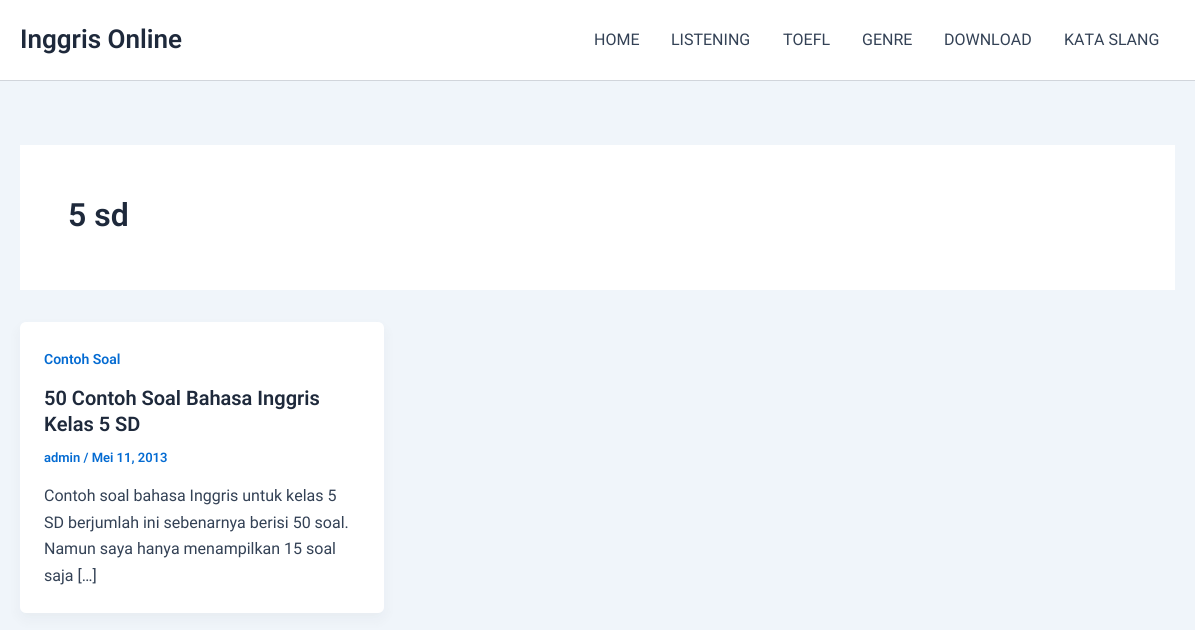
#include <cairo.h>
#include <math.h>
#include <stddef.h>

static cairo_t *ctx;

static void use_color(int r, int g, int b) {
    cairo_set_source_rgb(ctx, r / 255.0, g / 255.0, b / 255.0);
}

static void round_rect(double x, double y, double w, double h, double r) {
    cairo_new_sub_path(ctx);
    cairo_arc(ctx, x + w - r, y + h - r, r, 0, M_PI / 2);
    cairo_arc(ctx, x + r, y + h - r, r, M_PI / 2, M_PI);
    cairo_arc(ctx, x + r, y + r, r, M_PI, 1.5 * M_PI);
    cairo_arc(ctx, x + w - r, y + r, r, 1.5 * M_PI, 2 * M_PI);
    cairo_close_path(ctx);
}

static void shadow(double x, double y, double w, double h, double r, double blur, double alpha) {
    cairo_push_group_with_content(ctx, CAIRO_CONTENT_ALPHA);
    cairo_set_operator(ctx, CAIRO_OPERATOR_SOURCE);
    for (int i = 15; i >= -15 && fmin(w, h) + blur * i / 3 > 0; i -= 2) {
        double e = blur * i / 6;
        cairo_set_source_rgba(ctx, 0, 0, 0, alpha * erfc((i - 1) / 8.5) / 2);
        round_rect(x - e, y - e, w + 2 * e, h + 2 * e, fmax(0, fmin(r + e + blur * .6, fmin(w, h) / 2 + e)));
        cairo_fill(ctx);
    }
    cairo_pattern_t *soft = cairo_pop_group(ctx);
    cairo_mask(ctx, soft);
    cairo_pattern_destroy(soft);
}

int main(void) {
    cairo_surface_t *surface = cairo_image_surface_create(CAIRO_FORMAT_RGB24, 1195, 630);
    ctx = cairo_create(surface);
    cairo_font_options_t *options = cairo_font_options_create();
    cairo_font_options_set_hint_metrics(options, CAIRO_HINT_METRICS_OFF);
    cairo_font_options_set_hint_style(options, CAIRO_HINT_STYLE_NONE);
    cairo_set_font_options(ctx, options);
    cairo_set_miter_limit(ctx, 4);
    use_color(240, 245, 250);
    cairo_paint(ctx);
    use_color(255, 255, 255);
    cairo_rectangle(ctx, 0, 0, 1195, 80);
    cairo_fill(ctx);
    use_color(209, 213, 219);
    cairo_rectangle(ctx, 0, 80, 1195, 1);
    cairo_fill(ctx);
    cairo_select_font_face(ctx, "Roboto SemiBold", CAIRO_FONT_SLANT_NORMAL, CAIRO_FONT_WEIGHT_NORMAL);
    cairo_set_font_size(ctx, 26);
    use_color(30, 41, 59);
    cairo_move_to(ctx, 20, 48);
    cairo_show_text(ctx, "Inggris Online");
    cairo_select_font_face(ctx, "Roboto", CAIRO_FONT_SLANT_NORMAL, CAIRO_FONT_WEIGHT_NORMAL);
    cairo_set_font_size(ctx, 16);
    use_color(51, 65, 85);
    cairo_move_to(ctx, 594, 45);
    cairo_show_text(ctx, "HOME");
    cairo_move_to(ctx, 671, 45);
    cairo_show_text(ctx, "LISTENING");
    cairo_move_to(ctx, 783, 45);
    cairo_show_text(ctx, "TOEFL");
    cairo_move_to(ctx, 862, 45);
    cairo_show_text(ctx, "GENRE");
    cairo_move_to(ctx, 944, 45);
    cairo_show_text(ctx, "DOWNLOAD");
    cairo_move_to(ctx, 1064, 45);
    cairo_show_text(ctx, "KATA SLANG");
    use_color(255, 255, 255);
    cairo_rectangle(ctx, 20, 145, 1155, 145);
    cairo_fill(ctx);
    cairo_select_font_face(ctx, "Roboto SemiBold", CAIRO_FONT_SLANT_NORMAL, CAIRO_FONT_WEIGHT_NORMAL);
    cairo_set_font_size(ctx, 32);
    use_color(30, 41, 59);
    cairo_move_to(ctx, 68, 226);
    cairo_show_text(ctx, "5 sd");
    use_color(16, 24, 40);
    shadow(22, 330, 360, 287, 4, 7.5, 0.05);
    use_color(255, 255, 255);
    round_rect(20, 322, 364, 291, 6);
    cairo_fill(ctx);
    cairo_set_font_size(ctx, 14);
    use_color(4, 107, 210);
    cairo_move_to(ctx, 44, 364);
    cairo_show_text(ctx, "Contoh Soal");
    cairo_set_font_size(ctx, 20);
    use_color(30, 41, 59);
    cairo_move_to(ctx, 44, 405);
    cairo_show_text(ctx, "50 Contoh Soal Bahasa Inggris");
    cairo_move_to(ctx, 44, 431);
    cairo_show_text(ctx, "Kelas 5 SD");
    cairo_set_font_size(ctx, 13);
    use_color(4, 107, 210);
    cairo_move_to(ctx, 44, 462);
    cairo_show_text(ctx, "admin / Mei 11, 2013");
    cairo_select_font_face(ctx, "Roboto", CAIRO_FONT_SLANT_NORMAL, CAIRO_FONT_WEIGHT_NORMAL);
    cairo_set_font_size(ctx, 16);
    use_color(51, 65, 85);
    cairo_move_to(ctx, 44, 501);
    cairo_show_text(ctx, "Contoh soal bahasa Inggris untuk kelas 5");
    cairo_move_to(ctx, 44, 528);
    cairo_show_text(ctx, "SD berjumlah ini sebenarnya berisi 50 soal.");
    cairo_move_to(ctx, 44, 554);
    cairo_show_text(ctx, "Namun saya hanya menampilkan 15 soal");
    cairo_move_to(ctx, 44, 581);
    cairo_show_text(ctx, "saja […]");
    cairo_surface_write_to_png(surface, "result.png");
    cairo_font_options_destroy(options);
    cairo_destroy(ctx);
    cairo_surface_destroy(surface);
    return 0;
}
